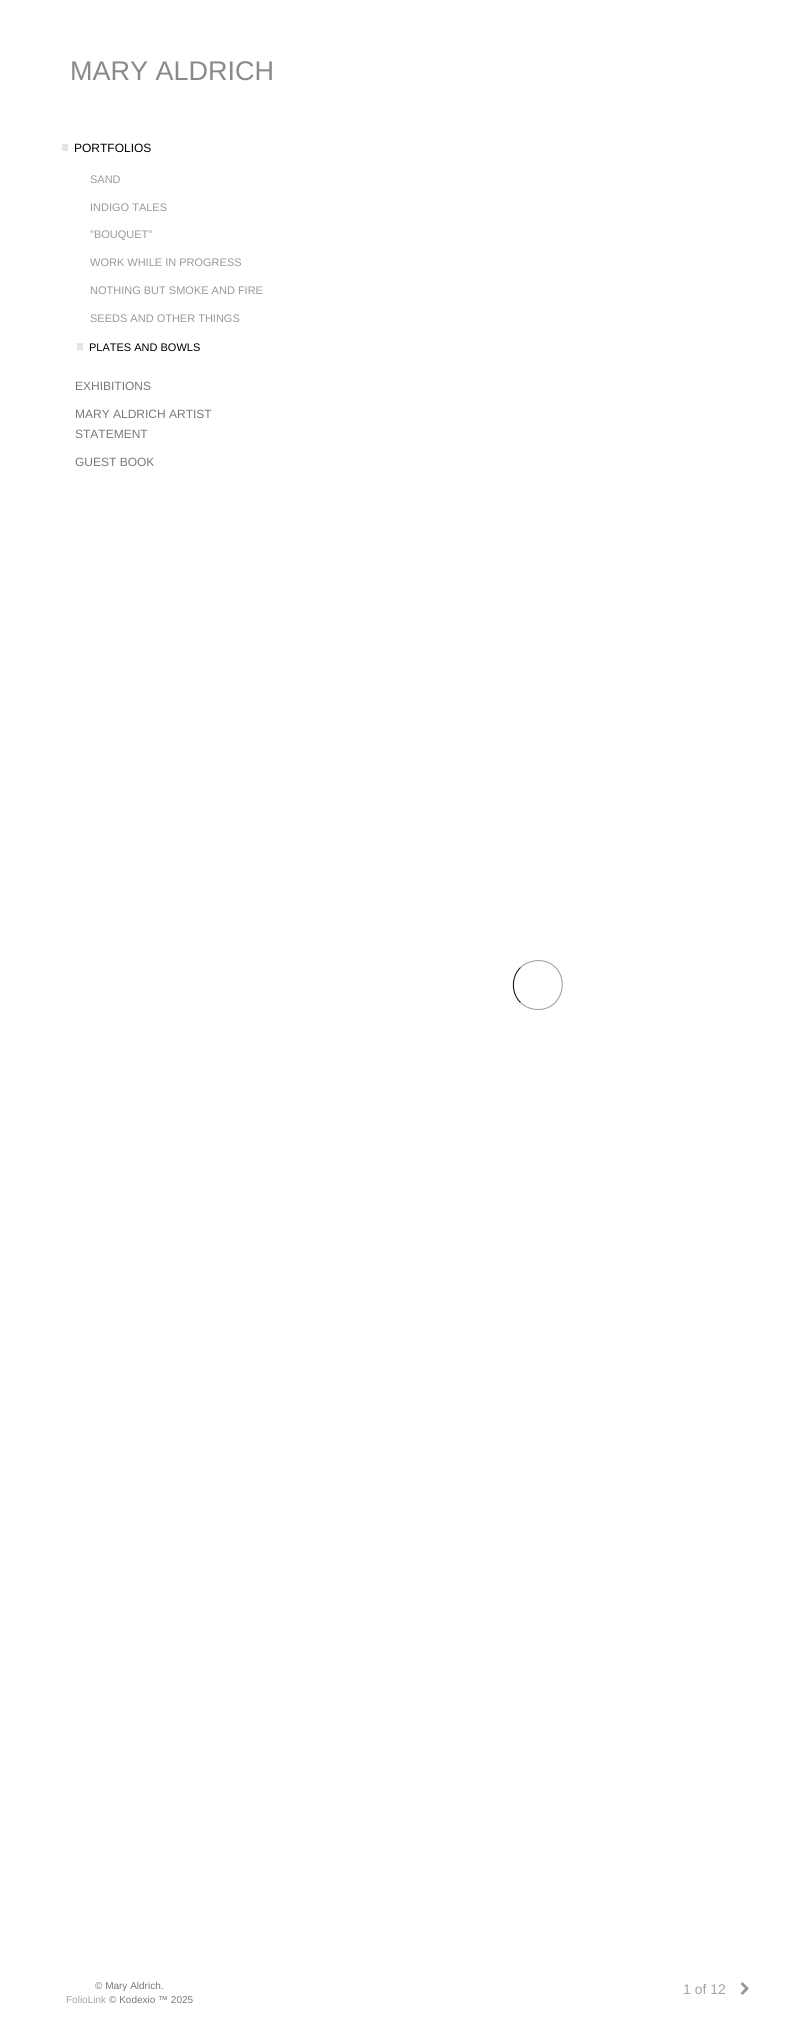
#include <cairo.h>
#include <math.h>
#include <stddef.h>

static cairo_t *ctx;

static void use_color(int r, int g, int b) {
    cairo_set_source_rgb(ctx, r / 255.0, g / 255.0, b / 255.0);
}

static void picture(const char *path, double x, double y, double w, double h) {
    cairo_surface_t *image = cairo_image_surface_create_from_png(path);
    cairo_save(ctx);
    cairo_set_source_surface(ctx, image, x, y);
    cairo_rectangle(ctx, x, y, w, h);
    cairo_fill(ctx);
    cairo_restore(ctx);
    cairo_surface_destroy(image);
}

int main(void) {
    cairo_surface_t *surface = cairo_image_surface_create(CAIRO_FORMAT_RGB24, 795, 2019);
    ctx = cairo_create(surface);
    cairo_font_options_t *options = cairo_font_options_create();
    cairo_font_options_set_hint_metrics(options, CAIRO_HINT_METRICS_OFF);
    cairo_font_options_set_hint_style(options, CAIRO_HINT_STYLE_NONE);
    cairo_set_font_options(ctx, options);
    cairo_set_miter_limit(ctx, 4);
    use_color(255, 255, 255);
    cairo_paint(ctx);
    cairo_select_font_face(ctx, "Liberation Sans", CAIRO_FONT_SLANT_NORMAL, CAIRO_FONT_WEIGHT_NORMAL);
    cairo_set_font_size(ctx, 27);
    use_color(138, 138, 138);
    cairo_move_to(ctx, 70, 80);
    cairo_show_text(ctx, "MARY ALDRICH");
    use_color(229, 229, 229);
    cairo_rectangle(ctx, 62, 144, 6, 7);
    cairo_fill(ctx);
    cairo_set_font_size(ctx, 12);
    use_color(0, 0, 0);
    cairo_move_to(ctx, 74, 152);
    cairo_show_text(ctx, "PORTFOLIOS");
    cairo_set_font_size(ctx, 11);
    use_color(153, 153, 153);
    cairo_move_to(ctx, 90, 183);
    cairo_show_text(ctx, "SAND");
    cairo_move_to(ctx, 90, 211);
    cairo_show_text(ctx, "INDIGO TALES");
    cairo_move_to(ctx, 90, 238);
    cairo_show_text(ctx, "\"BOUQUET\"");
    cairo_move_to(ctx, 90, 266);
    cairo_show_text(ctx, "WORK WHILE IN PROGRESS");
    cairo_move_to(ctx, 90, 294);
    cairo_show_text(ctx, "NOTHING BUT SMOKE AND FIRE");
    cairo_move_to(ctx, 90, 322);
    cairo_show_text(ctx, "SEEDS AND OTHER THINGS");
    use_color(229, 229, 229);
    cairo_rectangle(ctx, 77, 343, 6, 7);
    cairo_fill(ctx);
    use_color(0, 0, 0);
    cairo_move_to(ctx, 89, 351);
    cairo_show_text(ctx, "PLATES AND BOWLS");
    cairo_set_font_size(ctx, 12);
    use_color(120, 120, 120);
    cairo_move_to(ctx, 75, 390);
    cairo_show_text(ctx, "EXHIBITIONS");
    cairo_move_to(ctx, 75, 418);
    cairo_show_text(ctx, "MARY ALDRICH ARTIST");
    cairo_move_to(ctx, 75, 438);
    cairo_show_text(ctx, "STATEMENT");
    cairo_move_to(ctx, 75, 466);
    cairo_show_text(ctx, "GUEST BOOK");
    cairo_new_path(ctx);
    cairo_move_to(ctx, 520.5, 967.5);
    cairo_curve_to(ctx, 526.5, 962, 535, 959.5, 543, 961);
    cairo_curve_to(ctx, 571.5, 966.5, 567, 1009.5, 538, 1009.5);
    cairo_curve_to(ctx, 531.5, 1009.5, 525, 1007, 520.5, 1002.5);
    use_color(153, 153, 153);
    cairo_set_line_width(ctx, 1);
    cairo_stroke(ctx);
    cairo_new_path(ctx);
    cairo_move_to(ctx, 520.5, 1002.5);
    cairo_curve_to(ctx, 511, 993, 511, 977, 520.5, 967.5);
    use_color(0, 0, 0);
    cairo_stroke(ctx);
    cairo_set_font_size(ctx, 10);
    use_color(120, 120, 120);
    cairo_move_to(ctx, 95, 1989);
    cairo_show_text(ctx, "© Mary Aldrich.");
    use_color(162, 162, 162);
    cairo_move_to(ctx, 66, 2003);
    cairo_show_text(ctx, "FolioLink");
    use_color(120, 120, 120);
    cairo_move_to(ctx, 109, 2003);
    cairo_show_text(ctx, "© Kodexio ™ 2025");
    cairo_set_font_size(ctx, 14);
    use_color(162, 162, 162);
    cairo_move_to(ctx, 683, 1994);
    cairo_show_text(ctx, "1 of 12");
    picture("img1.png", 740, 1982, 9, 13);
    cairo_surface_write_to_png(surface, "result.png");
    cairo_font_options_destroy(options);
    cairo_destroy(ctx);
    cairo_surface_destroy(surface);
    return 0;
}
